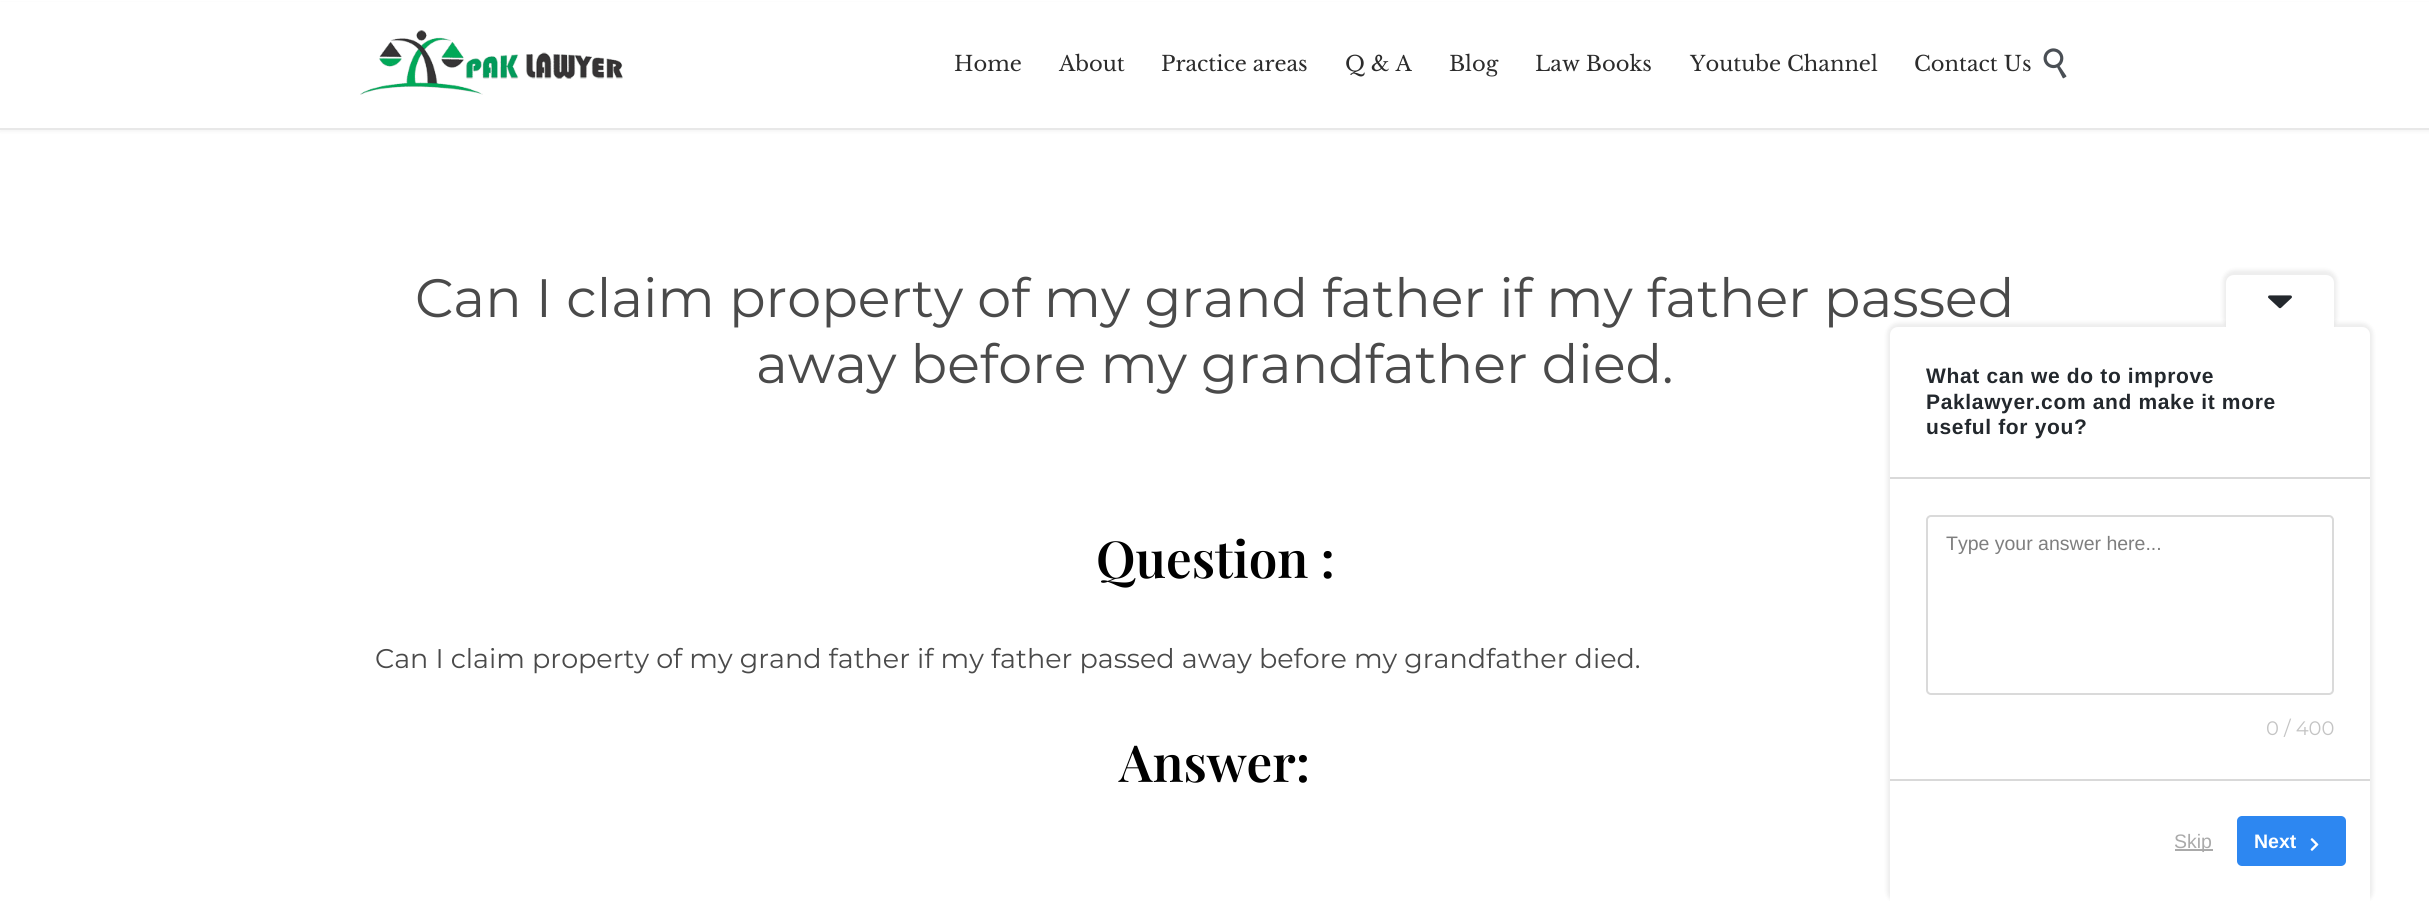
#include <cairo.h>
#include <math.h>
#include <stddef.h>

static cairo_t *ctx;

static void use_color(int r, int g, int b) {
    cairo_set_source_rgb(ctx, r / 255.0, g / 255.0, b / 255.0);
}

static void spaced_text(double x, double y, const char *s, double letter, double word) {
    cairo_move_to(ctx, x, y);
    while (*s) {
        char ch[5] = {0};
        int n = 0;
        do ch[n++] = *s++; while ((*s & 0xC0) == 0x80);
        cairo_show_text(ctx, ch);
        cairo_rel_move_to(ctx, letter + word * (*ch == ' '), 0);
    }
}

static void round_rect(double x, double y, double w, double h, double r) {
    cairo_new_sub_path(ctx);
    cairo_arc(ctx, x + w - r, y + h - r, r, 0, M_PI / 2);
    cairo_arc(ctx, x + r, y + h - r, r, M_PI / 2, M_PI);
    cairo_arc(ctx, x + r, y + r, r, M_PI, 1.5 * M_PI);
    cairo_arc(ctx, x + w - r, y + r, r, 1.5 * M_PI, 2 * M_PI);
    cairo_close_path(ctx);
}

static void shadow(double x, double y, double w, double h, double r, double blur, double alpha) {
    cairo_push_group_with_content(ctx, CAIRO_CONTENT_ALPHA);
    cairo_set_operator(ctx, CAIRO_OPERATOR_SOURCE);
    for (int i = 15; i >= -15 && fmin(w, h) + blur * i / 3 > 0; i -= 2) {
        double e = blur * i / 6;
        cairo_set_source_rgba(ctx, 0, 0, 0, alpha * erfc((i - 1) / 8.5) / 2);
        round_rect(x - e, y - e, w + 2 * e, h + 2 * e, fmax(0, fmin(r + e + blur * .6, fmin(w, h) / 2 + e)));
        cairo_fill(ctx);
    }
    cairo_pattern_t *soft = cairo_pop_group(ctx);
    cairo_mask(ctx, soft);
    cairo_pattern_destroy(soft);
}

static void picture(const char *path, double x, double y, double w, double h) {
    cairo_surface_t *image = cairo_image_surface_create_from_png(path);
    cairo_save(ctx);
    cairo_set_source_surface(ctx, image, x, y);
    cairo_rectangle(ctx, x, y, w, h);
    cairo_fill(ctx);
    cairo_restore(ctx);
    cairo_surface_destroy(image);
}

int main(void) {
    cairo_surface_t *surface = cairo_image_surface_create(CAIRO_FORMAT_RGB24, 2429, 901);
    ctx = cairo_create(surface);
    cairo_font_options_t *options = cairo_font_options_create();
    cairo_font_options_set_hint_metrics(options, CAIRO_HINT_METRICS_OFF);
    cairo_font_options_set_hint_style(options, CAIRO_HINT_STYLE_NONE);
    cairo_set_font_options(ctx, options);
    cairo_set_miter_limit(ctx, 4);
    use_color(255, 255, 255);
    cairo_paint(ctx);
    use_color(0, 0, 0);
    shadow(0, 3, 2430, 129, 0, 1.5, 0.04);
    use_color(255, 255, 255);
    cairo_rectangle(ctx, 0, 2, 2429, 126);
    cairo_fill(ctx);
    use_color(232, 232, 232);
    cairo_rectangle(ctx, 0, 128, 2429, 2);
    cairo_fill(ctx);
    picture("img1.png", 360, 30, 263, 65);
    cairo_select_font_face(ctx, "Libre Baskerville", CAIRO_FONT_SLANT_NORMAL, CAIRO_FONT_WEIGHT_NORMAL);
    cairo_set_font_size(ctx, 21);
    use_color(44, 44, 44);
    cairo_move_to(ctx, 954, 71);
    cairo_show_text(ctx, "Home");
    cairo_move_to(ctx, 1059, 71);
    cairo_show_text(ctx, "About");
    cairo_move_to(ctx, 1161, 71);
    cairo_show_text(ctx, "Practice areas");
    cairo_move_to(ctx, 1345, 71);
    cairo_show_text(ctx, "Q & A");
    cairo_move_to(ctx, 1449, 71);
    cairo_show_text(ctx, "Blog");
    cairo_move_to(ctx, 1535, 71);
    cairo_show_text(ctx, "Law Books");
    cairo_move_to(ctx, 1690, 71);
    cairo_show_text(ctx, "Youtube Channel");
    cairo_move_to(ctx, 1914, 71);
    cairo_show_text(ctx, "Contact Us");
    picture("img2.png", 2043, 48, 24, 31);
    cairo_select_font_face(ctx, "Montserrat", CAIRO_FONT_SLANT_NORMAL, CAIRO_FONT_WEIGHT_NORMAL);
    cairo_set_font_size(ctx, 54);
    use_color(74, 74, 74);
    cairo_move_to(ctx, 415, 317);
    cairo_show_text(ctx, "Can I claim property of my grand father if my father passed");
    cairo_move_to(ctx, 756, 383);
    cairo_show_text(ctx, "away before my grandfather died.");
    cairo_select_font_face(ctx, "Playfair Display SemiBold", CAIRO_FONT_SLANT_NORMAL, CAIRO_FONT_WEIGHT_NORMAL);
    cairo_set_font_size(ctx, 51);
    use_color(0, 0, 0);
    cairo_move_to(ctx, 1096, 578);
    cairo_show_text(ctx, "Question :");
    cairo_select_font_face(ctx, "Montserrat", CAIRO_FONT_SLANT_NORMAL, CAIRO_FONT_WEIGHT_NORMAL);
    cairo_set_font_size(ctx, 27);
    use_color(74, 74, 74);
    cairo_move_to(ctx, 375, 668);
    cairo_show_text(ctx, "Can I claim property of my grand father if my father passed away before my grandfather died.");
    cairo_select_font_face(ctx, "Playfair Display SemiBold", CAIRO_FONT_SLANT_NORMAL, CAIRO_FONT_WEIGHT_NORMAL);
    cairo_set_font_size(ctx, 51);
    use_color(0, 0, 0);
    cairo_move_to(ctx, 1119, 782);
    cairo_show_text(ctx, "Answer:");
    use_color(0, 0, 0);
    shadow(1887, 323, 486, 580, 11, 2, 0.07);
    use_color(255, 255, 255);
    cairo_new_path(ctx);
    cairo_move_to(ctx, 1898, 327);
    cairo_line_to(ctx, 2362, 327);
    cairo_curve_to(ctx, 2366.5, 327, 2370, 330.5, 2370, 335);
    cairo_line_to(ctx, 2370, 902);
    cairo_line_to(ctx, 1890, 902);
    cairo_line_to(ctx, 1890, 335);
    cairo_curve_to(ctx, 1890, 330.5, 1893.5, 327, 1898, 327);
    cairo_close_path(ctx);
    cairo_fill(ctx);
    cairo_save(ctx);
    cairo_new_path(ctx);
    cairo_move_to(ctx, 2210, 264);
    cairo_line_to(ctx, 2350, 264);
    cairo_line_to(ctx, 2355.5, 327);
    cairo_line_to(ctx, 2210, 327);
    cairo_close_path(ctx);
    cairo_clip(ctx);
    use_color(0, 0, 0);
    shadow(2223, 270, 114, 59, 11, 2, 0.07);
    cairo_restore(ctx);
    cairo_new_path(ctx);
    cairo_move_to(ctx, 2234, 275);
    cairo_line_to(ctx, 2326, 275);
    cairo_curve_to(ctx, 2330.5, 275, 2334, 278.5, 2334, 283);
    cairo_line_to(ctx, 2334, 327);
    cairo_line_to(ctx, 2226, 327);
    cairo_line_to(ctx, 2226, 283);
    cairo_curve_to(ctx, 2226, 278.5, 2229.5, 275, 2234, 275);
    cairo_close_path(ctx);
    cairo_fill(ctx);
    picture("img3.png", 2268, 295, 24, 14);
    cairo_select_font_face(ctx, "Liberation Sans", CAIRO_FONT_SLANT_NORMAL, CAIRO_FONT_WEIGHT_BOLD);
    cairo_set_font_size(ctx, 21);
    use_color(35, 40, 45);
    spaced_text(1926, 383, "What can we do to improve", 0.65, 0);
    spaced_text(1926, 409, "Paklawyer.com and make it more", 0.65, 0);
    spaced_text(1926, 434, "useful for you?", 0.65, 0);
    use_color(217, 217, 217);
    cairo_rectangle(ctx, 1890, 477, 480, 2);
    cairo_fill(ctx);
    cairo_rectangle(ctx, 1890, 779, 480, 2);
    cairo_fill(ctx);
    round_rect(1927, 516, 406, 178, 4);
    use_color(218, 218, 218);
    cairo_stroke(ctx);
    cairo_select_font_face(ctx, "Liberation Sans", CAIRO_FONT_SLANT_NORMAL, CAIRO_FONT_WEIGHT_NORMAL);
    cairo_set_font_size(ctx, 19.5);
    use_color(126, 126, 126);
    cairo_move_to(ctx, 1946, 550);
    cairo_show_text(ctx, "Type your answer here...");
    cairo_select_font_face(ctx, "Montserrat", CAIRO_FONT_SLANT_NORMAL, CAIRO_FONT_WEIGHT_NORMAL);
    use_color(196, 196, 196);
    cairo_move_to(ctx, 2266, 735);
    cairo_show_text(ctx, "0 / 400");
    use_color(170, 170, 170);
    cairo_rectangle(ctx, 2175, 849, 38, 2);
    cairo_fill(ctx);
    cairo_select_font_face(ctx, "Liberation Sans", CAIRO_FONT_SLANT_NORMAL, CAIRO_FONT_WEIGHT_NORMAL);
    cairo_move_to(ctx, 2174, 848);
    cairo_show_text(ctx, "Skip");
    use_color(45, 135, 241);
    round_rect(2237, 816, 109, 50, 5);
    cairo_fill(ctx);
    cairo_select_font_face(ctx, "Liberation Sans", CAIRO_FONT_SLANT_NORMAL, CAIRO_FONT_WEIGHT_BOLD);
    use_color(255, 255, 255);
    cairo_move_to(ctx, 2254, 848);
    cairo_show_text(ctx, "Next");
    picture("img4.png", 2310, 838, 9, 13);
    cairo_surface_write_to_png(surface, "result.png");
    cairo_font_options_destroy(options);
    cairo_destroy(ctx);
    cairo_surface_destroy(surface);
    return 0;
}
